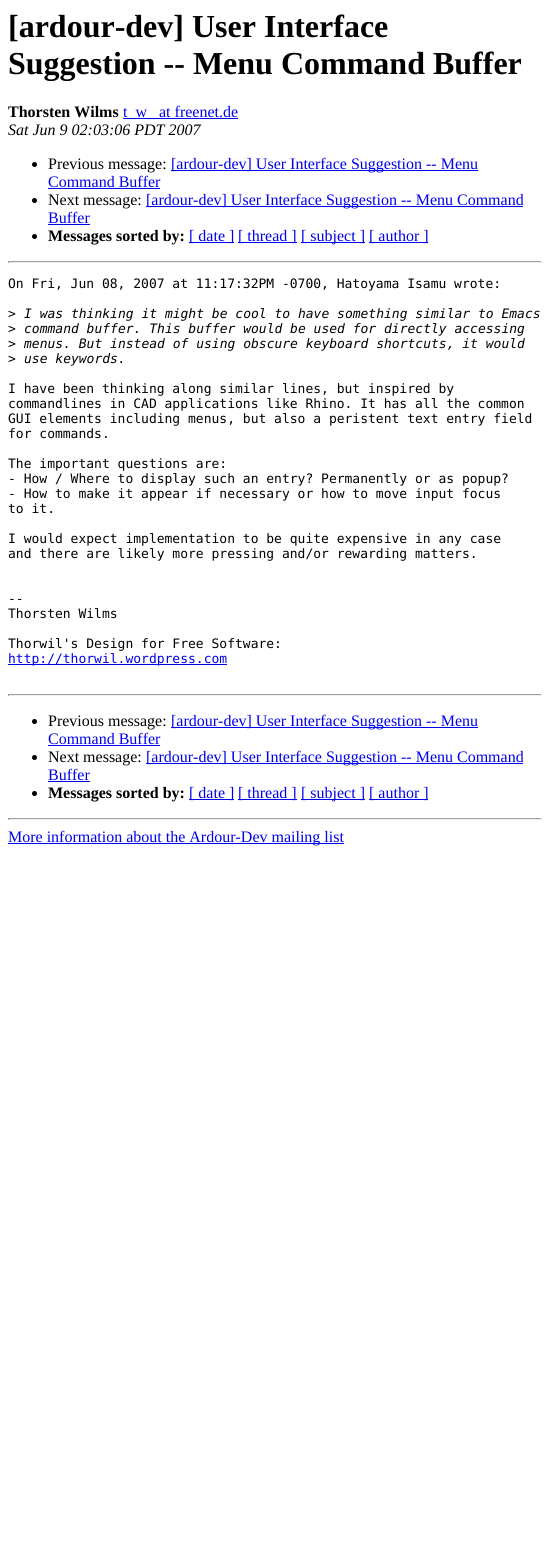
#include <cairo.h>
#include <math.h>
#include <stddef.h>

static cairo_t *ctx;

static void use_color(int r, int g, int b) {
    cairo_set_source_rgb(ctx, r / 255.0, g / 255.0, b / 255.0);
}

int main(void) {
    cairo_surface_t *surface = cairo_image_surface_create(CAIRO_FORMAT_RGB24, 550, 1559);
    ctx = cairo_create(surface);
    cairo_font_options_t *options = cairo_font_options_create();
    cairo_font_options_set_hint_metrics(options, CAIRO_HINT_METRICS_OFF);
    cairo_font_options_set_hint_style(options, CAIRO_HINT_STYLE_NONE);
    cairo_set_font_options(ctx, options);
    cairo_set_miter_limit(ctx, 4);
    use_color(255, 255, 255);
    cairo_paint(ctx);
    cairo_select_font_face(ctx, "Liberation Serif", CAIRO_FONT_SLANT_NORMAL, CAIRO_FONT_WEIGHT_BOLD);
    cairo_set_font_size(ctx, 32);
    use_color(0, 0, 0);
    cairo_move_to(ctx, 8, 37);
    cairo_show_text(ctx, "[ardour-dev] User Interface");
    cairo_move_to(ctx, 8, 74);
    cairo_show_text(ctx, "Suggestion -- Menu Command Buffer");
    cairo_set_font_size(ctx, 16);
    cairo_move_to(ctx, 8, 117);
    cairo_show_text(ctx, "Thorsten Wilms");
    use_color(0, 0, 238);
    cairo_rectangle(ctx, 123, 118, 115, 1);
    cairo_fill(ctx);
    cairo_select_font_face(ctx, "Liberation Serif", CAIRO_FONT_SLANT_NORMAL, CAIRO_FONT_WEIGHT_NORMAL);
    cairo_move_to(ctx, 123, 117);
    cairo_show_text(ctx, "t_w_ at freenet.de");
    cairo_select_font_face(ctx, "Liberation Serif", CAIRO_FONT_SLANT_ITALIC, CAIRO_FONT_WEIGHT_NORMAL);
    use_color(0, 0, 0);
    cairo_move_to(ctx, 8, 135);
    cairo_show_text(ctx, "Sat Jun 9 02:03:06 PDT 2007");
    cairo_new_path(ctx);
    cairo_arc(ctx, 34.5, 164.5, 2.5, 0, 2 * M_PI);
    cairo_fill(ctx);
    cairo_select_font_face(ctx, "Liberation Serif", CAIRO_FONT_SLANT_NORMAL, CAIRO_FONT_WEIGHT_NORMAL);
    cairo_move_to(ctx, 48, 169);
    cairo_show_text(ctx, "Previous message:");
    use_color(0, 0, 238);
    cairo_rectangle(ctx, 171, 170, 307, 1);
    cairo_fill(ctx);
    cairo_move_to(ctx, 171, 169);
    cairo_show_text(ctx, "[ardour-dev] User Interface Suggestion -- Menu");
    cairo_move_to(ctx, 48, 187);
    cairo_show_text(ctx, "Command Buffer");
    cairo_rectangle(ctx, 48, 188, 112, 1);
    cairo_fill(ctx);
    use_color(0, 0, 0);
    cairo_arc(ctx, 34.5, 200.5, 2.5, 0, 2 * M_PI);
    cairo_fill(ctx);
    cairo_move_to(ctx, 48, 205);
    cairo_show_text(ctx, "Next message:");
    use_color(0, 0, 238);
    cairo_rectangle(ctx, 146, 206, 377, 1);
    cairo_fill(ctx);
    cairo_move_to(ctx, 146, 205);
    cairo_show_text(ctx, "[ardour-dev] User Interface Suggestion -- Menu Command");
    cairo_move_to(ctx, 48, 223);
    cairo_show_text(ctx, "Buffer");
    cairo_rectangle(ctx, 48, 224, 42, 1);
    cairo_fill(ctx);
    use_color(0, 0, 0);
    cairo_arc(ctx, 34.5, 236.5, 2.5, 0, 2 * M_PI);
    cairo_fill(ctx);
    cairo_select_font_face(ctx, "Liberation Serif", CAIRO_FONT_SLANT_NORMAL, CAIRO_FONT_WEIGHT_BOLD);
    cairo_move_to(ctx, 48, 241);
    cairo_show_text(ctx, "Messages sorted by:");
    use_color(0, 0, 238);
    cairo_rectangle(ctx, 189, 242, 45, 1);
    cairo_fill(ctx);
    cairo_select_font_face(ctx, "Liberation Serif", CAIRO_FONT_SLANT_NORMAL, CAIRO_FONT_WEIGHT_NORMAL);
    cairo_move_to(ctx, 189, 241);
    cairo_show_text(ctx, "[ date ]");
    cairo_rectangle(ctx, 238, 242, 59, 1);
    cairo_fill(ctx);
    cairo_move_to(ctx, 238, 241);
    cairo_show_text(ctx, "[ thread ]");
    cairo_rectangle(ctx, 301, 242, 64, 1);
    cairo_fill(ctx);
    cairo_move_to(ctx, 301, 241);
    cairo_show_text(ctx, "[ subject ]");
    cairo_rectangle(ctx, 369, 242, 59, 1);
    cairo_fill(ctx);
    cairo_move_to(ctx, 369, 241);
    cairo_show_text(ctx, "[ author ]");
    use_color(159, 159, 159);
    cairo_rectangle(ctx, 8, 261, 534, 1);
    cairo_fill(ctx);
    use_color(238, 238, 238);
    cairo_rectangle(ctx, 541, 261, 1, 2);
    cairo_fill(ctx);
    cairo_rectangle(ctx, 8, 262, 534, 1);
    cairo_fill(ctx);
    use_color(159, 159, 159);
    cairo_rectangle(ctx, 8, 261, 1, 2);
    cairo_fill(ctx);
    cairo_select_font_face(ctx, "DejaVu Sans Mono", CAIRO_FONT_SLANT_NORMAL, CAIRO_FONT_WEIGHT_NORMAL);
    cairo_set_font_size(ctx, 13);
    use_color(0, 0, 0);
    cairo_move_to(ctx, 8, 288);
    cairo_show_text(ctx, "On Fri, Jun 08, 2007 at 11:17:32PM -0700, Hatoyama Isamu wrote:");
    cairo_move_to(ctx, 8, 318);
    cairo_show_text(ctx, ">");
    cairo_select_font_face(ctx, "DejaVu Sans Mono", CAIRO_FONT_SLANT_ITALIC, CAIRO_FONT_WEIGHT_NORMAL);
    cairo_move_to(ctx, 24, 318);
    cairo_show_text(ctx, "I was thinking it might be cool to have something similar to Emacs");
    cairo_select_font_face(ctx, "DejaVu Sans Mono", CAIRO_FONT_SLANT_NORMAL, CAIRO_FONT_WEIGHT_NORMAL);
    cairo_move_to(ctx, 8, 333);
    cairo_show_text(ctx, ">");
    cairo_select_font_face(ctx, "DejaVu Sans Mono", CAIRO_FONT_SLANT_ITALIC, CAIRO_FONT_WEIGHT_NORMAL);
    cairo_move_to(ctx, 24, 333);
    cairo_show_text(ctx, "command buffer. This buffer would be used for directly accessing");
    cairo_select_font_face(ctx, "DejaVu Sans Mono", CAIRO_FONT_SLANT_NORMAL, CAIRO_FONT_WEIGHT_NORMAL);
    cairo_move_to(ctx, 8, 348);
    cairo_show_text(ctx, ">");
    cairo_select_font_face(ctx, "DejaVu Sans Mono", CAIRO_FONT_SLANT_ITALIC, CAIRO_FONT_WEIGHT_NORMAL);
    cairo_move_to(ctx, 24, 348);
    cairo_show_text(ctx, "menus. But instead of using obscure keyboard shortcuts, it would");
    cairo_select_font_face(ctx, "DejaVu Sans Mono", CAIRO_FONT_SLANT_NORMAL, CAIRO_FONT_WEIGHT_NORMAL);
    cairo_move_to(ctx, 8, 363);
    cairo_show_text(ctx, ">");
    cairo_select_font_face(ctx, "DejaVu Sans Mono", CAIRO_FONT_SLANT_ITALIC, CAIRO_FONT_WEIGHT_NORMAL);
    cairo_move_to(ctx, 24, 363);
    cairo_show_text(ctx, "use keywords.");
    cairo_select_font_face(ctx, "DejaVu Sans Mono", CAIRO_FONT_SLANT_NORMAL, CAIRO_FONT_WEIGHT_NORMAL);
    cairo_move_to(ctx, 8, 393);
    cairo_show_text(ctx, "I have been thinking along similar lines, but inspired by");
    cairo_move_to(ctx, 8, 408);
    cairo_show_text(ctx, "commandlines in CAD applications like Rhino. It has all the common");
    cairo_move_to(ctx, 8, 423);
    cairo_show_text(ctx, "GUI elements including menus, but also a peristent text entry field");
    cairo_move_to(ctx, 8, 438);
    cairo_show_text(ctx, "for commands.");
    cairo_move_to(ctx, 8, 468);
    cairo_show_text(ctx, "The important questions are:");
    cairo_move_to(ctx, 8, 483);
    cairo_show_text(ctx, "- How / Where to display such an entry? Permanently or as popup?");
    cairo_move_to(ctx, 8, 498);
    cairo_show_text(ctx, "- How to make it appear if necessary or how to move input focus");
    cairo_move_to(ctx, 8, 513);
    cairo_show_text(ctx, "to it.");
    cairo_move_to(ctx, 8, 543);
    cairo_show_text(ctx, "I would expect implementation to be quite expensive in any case");
    cairo_move_to(ctx, 8, 558);
    cairo_show_text(ctx, "and there are likely more pressing and/or rewarding matters.");
    cairo_move_to(ctx, 8, 603);
    cairo_show_text(ctx, "--");
    cairo_move_to(ctx, 8, 618);
    cairo_show_text(ctx, "Thorsten Wilms");
    cairo_move_to(ctx, 8, 648);
    cairo_show_text(ctx, "Thorwil's Design for Free Software:");
    use_color(0, 0, 238);
    cairo_rectangle(ctx, 8, 664, 219, 1);
    cairo_fill(ctx);
    cairo_move_to(ctx, 8, 663);
    cairo_show_text(ctx, "http://thorwil.wordpress.com");
    use_color(159, 159, 159);
    cairo_rectangle(ctx, 8, 694, 534, 1);
    cairo_fill(ctx);
    use_color(238, 238, 238);
    cairo_rectangle(ctx, 541, 694, 1, 2);
    cairo_fill(ctx);
    cairo_rectangle(ctx, 8, 695, 534, 1);
    cairo_fill(ctx);
    use_color(159, 159, 159);
    cairo_rectangle(ctx, 8, 694, 1, 2);
    cairo_fill(ctx);
    use_color(0, 0, 0);
    cairo_arc(ctx, 34.5, 721.5, 2.5, 0, 2 * M_PI);
    cairo_fill(ctx);
    cairo_select_font_face(ctx, "Liberation Serif", CAIRO_FONT_SLANT_NORMAL, CAIRO_FONT_WEIGHT_NORMAL);
    cairo_set_font_size(ctx, 16);
    cairo_move_to(ctx, 48, 726);
    cairo_show_text(ctx, "Previous message:");
    use_color(0, 0, 238);
    cairo_rectangle(ctx, 171, 727, 307, 1);
    cairo_fill(ctx);
    cairo_move_to(ctx, 171, 726);
    cairo_show_text(ctx, "[ardour-dev] User Interface Suggestion -- Menu");
    cairo_move_to(ctx, 48, 744);
    cairo_show_text(ctx, "Command Buffer");
    cairo_rectangle(ctx, 48, 745, 112, 1);
    cairo_fill(ctx);
    use_color(0, 0, 0);
    cairo_arc(ctx, 34.5, 757.5, 2.5, 0, 2 * M_PI);
    cairo_fill(ctx);
    cairo_move_to(ctx, 48, 762);
    cairo_show_text(ctx, "Next message:");
    use_color(0, 0, 238);
    cairo_rectangle(ctx, 146, 763, 377, 1);
    cairo_fill(ctx);
    cairo_move_to(ctx, 146, 762);
    cairo_show_text(ctx, "[ardour-dev] User Interface Suggestion -- Menu Command");
    cairo_move_to(ctx, 48, 780);
    cairo_show_text(ctx, "Buffer");
    cairo_rectangle(ctx, 48, 781, 42, 1);
    cairo_fill(ctx);
    use_color(0, 0, 0);
    cairo_arc(ctx, 34.5, 793.5, 2.5, 0, 2 * M_PI);
    cairo_fill(ctx);
    cairo_select_font_face(ctx, "Liberation Serif", CAIRO_FONT_SLANT_NORMAL, CAIRO_FONT_WEIGHT_BOLD);
    cairo_move_to(ctx, 48, 798);
    cairo_show_text(ctx, "Messages sorted by:");
    use_color(0, 0, 238);
    cairo_rectangle(ctx, 189, 799, 45, 1);
    cairo_fill(ctx);
    cairo_select_font_face(ctx, "Liberation Serif", CAIRO_FONT_SLANT_NORMAL, CAIRO_FONT_WEIGHT_NORMAL);
    cairo_move_to(ctx, 189, 798);
    cairo_show_text(ctx, "[ date ]");
    cairo_rectangle(ctx, 238, 799, 59, 1);
    cairo_fill(ctx);
    cairo_move_to(ctx, 238, 798);
    cairo_show_text(ctx, "[ thread ]");
    cairo_rectangle(ctx, 301, 799, 64, 1);
    cairo_fill(ctx);
    cairo_move_to(ctx, 301, 798);
    cairo_show_text(ctx, "[ subject ]");
    cairo_rectangle(ctx, 369, 799, 59, 1);
    cairo_fill(ctx);
    cairo_move_to(ctx, 369, 798);
    cairo_show_text(ctx, "[ author ]");
    use_color(159, 159, 159);
    cairo_rectangle(ctx, 8, 818, 534, 1);
    cairo_fill(ctx);
    use_color(238, 238, 238);
    cairo_rectangle(ctx, 541, 818, 1, 2);
    cairo_fill(ctx);
    cairo_rectangle(ctx, 8, 819, 534, 1);
    cairo_fill(ctx);
    use_color(159, 159, 159);
    cairo_rectangle(ctx, 8, 818, 1, 2);
    cairo_fill(ctx);
    use_color(0, 0, 238);
    cairo_rectangle(ctx, 8, 843, 336, 1);
    cairo_fill(ctx);
    cairo_move_to(ctx, 8, 842);
    cairo_show_text(ctx, "More information about the Ardour-Dev mailing list");
    cairo_surface_write_to_png(surface, "result.png");
    cairo_font_options_destroy(options);
    cairo_destroy(ctx);
    cairo_surface_destroy(surface);
    return 0;
}
